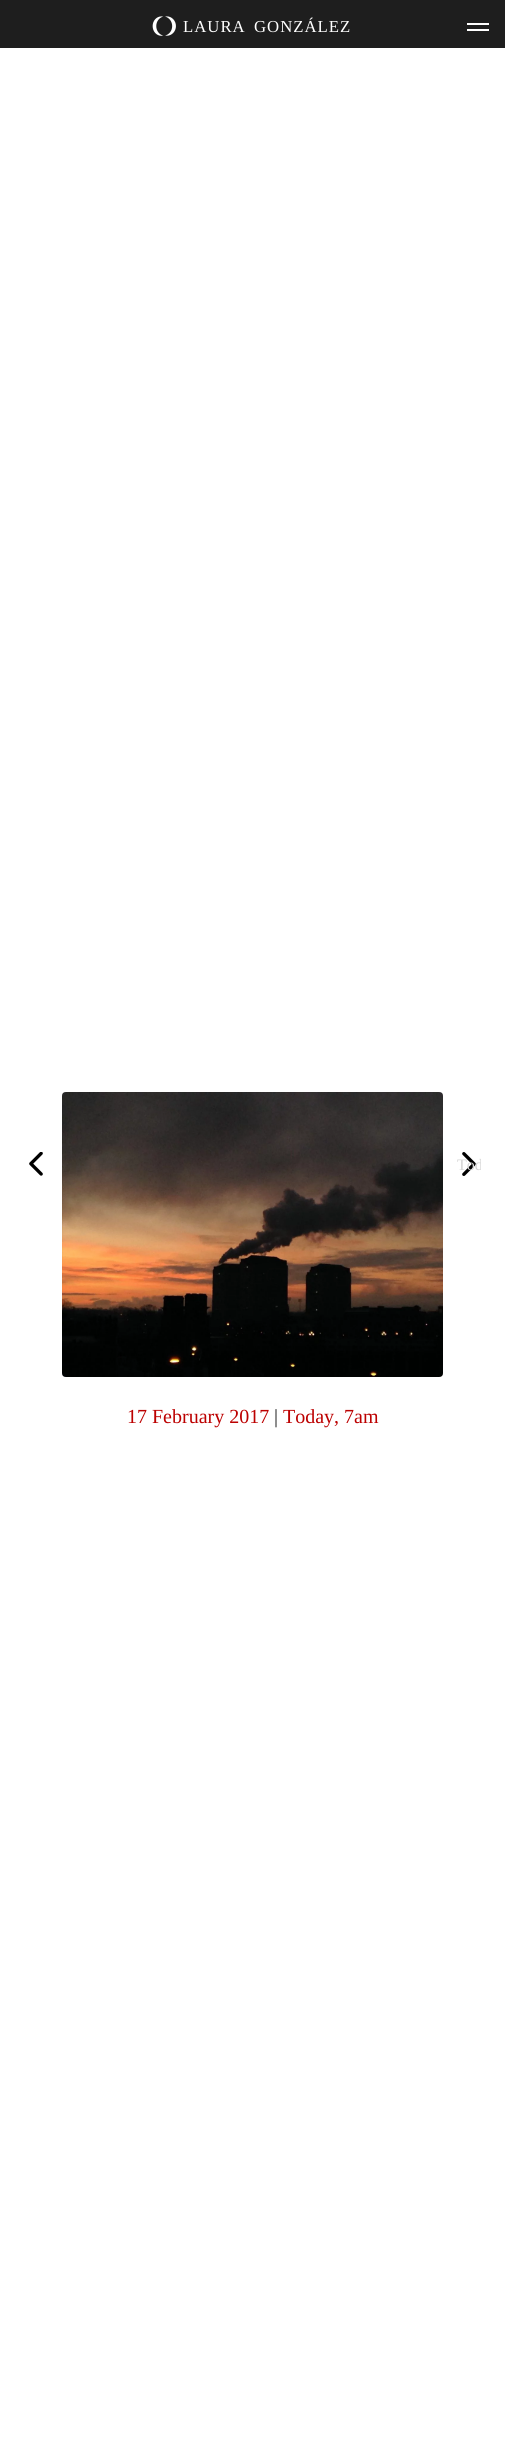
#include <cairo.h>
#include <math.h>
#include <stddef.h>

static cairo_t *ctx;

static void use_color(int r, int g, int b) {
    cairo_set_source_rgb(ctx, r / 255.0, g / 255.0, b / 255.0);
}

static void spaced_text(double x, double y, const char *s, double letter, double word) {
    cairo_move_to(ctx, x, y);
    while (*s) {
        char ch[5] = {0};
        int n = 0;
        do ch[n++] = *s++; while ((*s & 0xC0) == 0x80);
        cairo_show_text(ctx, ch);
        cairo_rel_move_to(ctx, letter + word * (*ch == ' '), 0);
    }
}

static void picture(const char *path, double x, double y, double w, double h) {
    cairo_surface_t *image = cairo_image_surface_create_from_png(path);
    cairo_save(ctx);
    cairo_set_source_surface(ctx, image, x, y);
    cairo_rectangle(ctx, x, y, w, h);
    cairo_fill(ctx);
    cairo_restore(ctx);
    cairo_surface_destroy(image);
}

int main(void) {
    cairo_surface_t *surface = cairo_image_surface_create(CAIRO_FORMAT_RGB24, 505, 2453);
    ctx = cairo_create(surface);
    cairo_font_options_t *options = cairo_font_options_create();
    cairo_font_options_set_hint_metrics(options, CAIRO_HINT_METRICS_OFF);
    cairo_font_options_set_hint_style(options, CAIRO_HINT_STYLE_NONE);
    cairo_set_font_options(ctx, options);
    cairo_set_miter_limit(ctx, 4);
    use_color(255, 255, 255);
    cairo_paint(ctx);
    use_color(30, 30, 30);
    cairo_rectangle(ctx, 0, 0, 505, 48);
    cairo_fill(ctx);
    picture("img1.png", 152, 16, 24, 20);
    cairo_select_font_face(ctx, "Liberation Serif", CAIRO_FONT_SLANT_NORMAL, CAIRO_FONT_WEIGHT_NORMAL);
    cairo_set_font_size(ctx, 16.75);
    use_color(255, 255, 255);
    spaced_text(183, 32, "LAURA", 1, 0);
    spaced_text(254, 32, "GONZÁLEZ", 1, 0);
    cairo_rectangle(ctx, 467, 23, 22, 2);
    cairo_fill(ctx);
    cairo_rectangle(ctx, 467, 29, 22, 2);
    cairo_fill(ctx);
    picture("img2.png", 29, 1152, 14, 24);
    picture("img3.png", 462, 1152, 14, 24);
    cairo_save(ctx);
    cairo_rectangle(ctx, 457, 1152, 24, 24);
    cairo_clip(ctx);
    cairo_set_font_size(ctx, 16);
    use_color(212, 212, 212);
    cairo_move_to(ctx, 457, 1170);
    cairo_show_text(ctx, "Tod");
    cairo_restore(ctx);
    picture("img4.png", 62, 1092, 381, 285);
    cairo_set_font_size(ctx, 20);
    use_color(188, 0, 0);
    cairo_move_to(ctx, 127, 1423);
    cairo_show_text(ctx, "17 February 2017");
    use_color(30, 30, 30);
    cairo_move_to(ctx, 274, 1423);
    cairo_show_text(ctx, "|");
    use_color(188, 0, 0);
    cairo_move_to(ctx, 283, 1423);
    cairo_show_text(ctx, "Today, 7am");
    cairo_surface_write_to_png(surface, "result.png");
    cairo_font_options_destroy(options);
    cairo_destroy(ctx);
    cairo_surface_destroy(surface);
    return 0;
}
